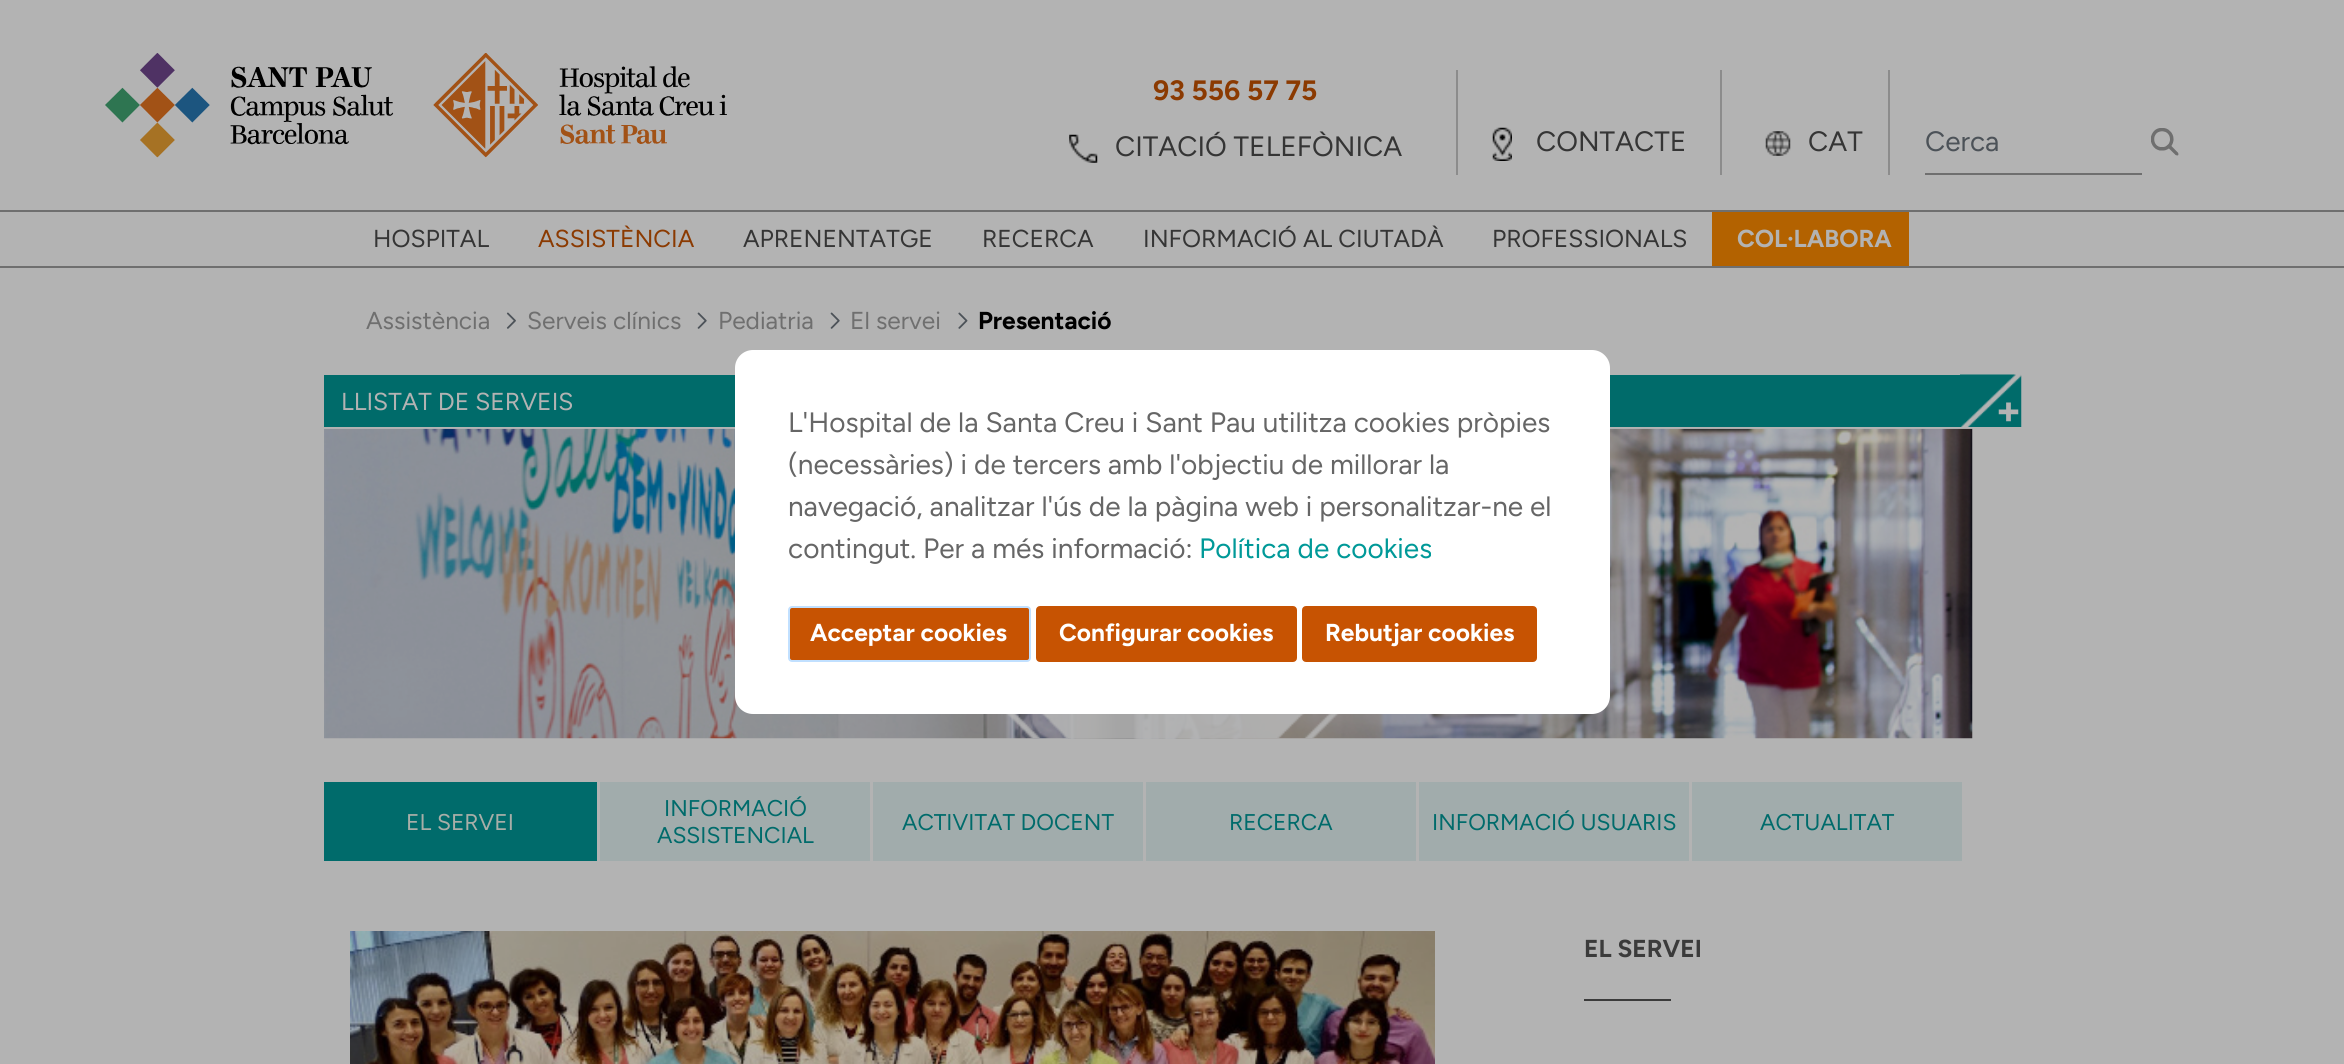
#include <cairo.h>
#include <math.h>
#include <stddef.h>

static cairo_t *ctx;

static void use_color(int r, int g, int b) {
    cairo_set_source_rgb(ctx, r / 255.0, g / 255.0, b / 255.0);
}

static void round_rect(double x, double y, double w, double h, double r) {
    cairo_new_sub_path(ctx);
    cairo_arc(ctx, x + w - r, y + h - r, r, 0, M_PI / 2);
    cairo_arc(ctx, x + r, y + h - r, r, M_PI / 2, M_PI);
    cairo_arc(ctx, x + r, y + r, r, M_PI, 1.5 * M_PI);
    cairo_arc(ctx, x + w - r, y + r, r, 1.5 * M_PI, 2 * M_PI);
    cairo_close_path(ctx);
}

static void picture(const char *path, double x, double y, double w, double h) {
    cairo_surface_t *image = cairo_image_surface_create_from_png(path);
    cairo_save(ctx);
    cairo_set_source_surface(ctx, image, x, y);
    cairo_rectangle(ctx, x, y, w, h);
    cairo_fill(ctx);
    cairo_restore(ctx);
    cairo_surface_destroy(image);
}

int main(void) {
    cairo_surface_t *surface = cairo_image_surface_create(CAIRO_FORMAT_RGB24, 2344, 1064);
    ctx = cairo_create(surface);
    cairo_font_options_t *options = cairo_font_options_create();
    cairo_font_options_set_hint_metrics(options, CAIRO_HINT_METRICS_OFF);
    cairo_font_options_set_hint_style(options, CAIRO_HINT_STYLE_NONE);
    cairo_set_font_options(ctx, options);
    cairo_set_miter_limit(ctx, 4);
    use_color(179, 179, 179);
    cairo_paint(ctx);
    picture("img1.png", 105, 53, 622, 105);
    use_color(140, 140, 140);
    cairo_rectangle(ctx, 1456, 70, 2, 105);
    cairo_fill(ctx);
    cairo_select_font_face(ctx, "Figtree", CAIRO_FONT_SLANT_NORMAL, CAIRO_FONT_WEIGHT_BOLD);
    cairo_set_font_size(ctx, 28);
    use_color(139, 58, 1);
    cairo_move_to(ctx, 1153, 100);
    cairo_show_text(ctx, "93 556 57 75");
    picture("img2.png", 1069, 134, 29, 29);
    cairo_select_font_face(ctx, "Figtree", CAIRO_FONT_SLANT_NORMAL, CAIRO_FONT_WEIGHT_NORMAL);
    use_color(53, 53, 53);
    cairo_move_to(ctx, 1115, 156);
    cairo_show_text(ctx, "CITACIÓ TELEFÒNICA");
    use_color(140, 140, 140);
    cairo_rectangle(ctx, 1720, 70, 2, 105);
    cairo_fill(ctx);
    picture("img3.png", 1492, 127, 20, 34);
    use_color(53, 53, 53);
    cairo_move_to(ctx, 1536, 151);
    cairo_show_text(ctx, "CONTACTE");
    use_color(140, 140, 140);
    cairo_rectangle(ctx, 1888, 70, 2, 105);
    cairo_fill(ctx);
    picture("img4.png", 1765, 131, 26, 25);
    use_color(53, 53, 53);
    cairo_move_to(ctx, 1808, 151);
    cairo_show_text(ctx, "CAT");
    use_color(111, 111, 111);
    cairo_rectangle(ctx, 1925, 173, 217, 2);
    cairo_fill(ctx);
    use_color(76, 82, 88);
    cairo_move_to(ctx, 1925, 151);
    cairo_show_text(ctx, "Cerca");
    picture("img5.png", 2151, 128, 28, 28);
    use_color(111, 111, 111);
    cairo_rectangle(ctx, 0, 210, 2344, 2);
    cairo_fill(ctx);
    cairo_rectangle(ctx, 0, 266, 2344, 2);
    cairo_fill(ctx);
    cairo_set_font_size(ctx, 24.5);
    use_color(53, 53, 53);
    cairo_move_to(ctx, 373, 247);
    cairo_show_text(ctx, "HOSPITAL");
    use_color(139, 58, 1);
    cairo_move_to(ctx, 538, 247);
    cairo_show_text(ctx, "ASSISTÈNCIA");
    use_color(53, 53, 53);
    cairo_move_to(ctx, 743, 247);
    cairo_show_text(ctx, "APRENENTATGE");
    cairo_move_to(ctx, 982, 247);
    cairo_show_text(ctx, "RECERCA");
    cairo_move_to(ctx, 1143, 247);
    cairo_show_text(ctx, "INFORMACIÓ AL CIUTADÀ");
    cairo_move_to(ctx, 1492, 247);
    cairo_show_text(ctx, "PROFESSIONALS");
    use_color(179, 98, 0);
    cairo_rectangle(ctx, 1712, 212, 197, 54);
    cairo_fill(ctx);
    cairo_select_font_face(ctx, "Figtree", CAIRO_FONT_SLANT_NORMAL, CAIRO_FONT_WEIGHT_BOLD);
    use_color(179, 179, 179);
    cairo_move_to(ctx, 1737, 247);
    cairo_show_text(ctx, "COL·LABORA");
    cairo_select_font_face(ctx, "Figtree", CAIRO_FONT_SLANT_NORMAL, CAIRO_FONT_WEIGHT_NORMAL);
    use_color(111, 111, 111);
    cairo_move_to(ctx, 366, 329);
    cairo_show_text(ctx, "Assistència");
    picture("img6.png", 506, 312, 10, 17);
    cairo_move_to(ctx, 527, 329);
    cairo_show_text(ctx, "Serveis clínics");
    picture("img7.png", 697, 312, 10, 17);
    cairo_move_to(ctx, 718, 329);
    cairo_show_text(ctx, "Pediatria");
    picture("img7.png", 830, 312, 10, 17);
    cairo_move_to(ctx, 850, 329);
    cairo_show_text(ctx, "El servei");
    picture("img8.png", 958, 312, 10, 17);
    cairo_select_font_face(ctx, "Figtree", CAIRO_FONT_SLANT_NORMAL, CAIRO_FONT_WEIGHT_BOLD);
    use_color(0, 0, 0);
    cairo_move_to(ctx, 978, 329);
    cairo_show_text(ctx, "Presentació");
    use_color(0, 107, 106);
    cairo_rectangle(ctx, 324, 375, 1636, 52);
    cairo_fill(ctx);
    cairo_select_font_face(ctx, "Figtree", CAIRO_FONT_SLANT_NORMAL, CAIRO_FONT_WEIGHT_NORMAL);
    use_color(179, 179, 179);
    cairo_move_to(ctx, 341, 410);
    cairo_show_text(ctx, "LLISTAT DE SERVEIS");
    picture("img9.png", 1960, 374, 62, 53);
    picture("img10.png", 324, 428, 1649, 311);
    picture("img11.png", 1006, 714, 333, 25);
    use_color(0, 107, 107);
    cairo_rectangle(ctx, 324, 782, 273, 79);
    cairo_fill(ctx);
    cairo_set_font_size(ctx, 22.75);
    use_color(168, 174, 168);
    cairo_move_to(ctx, 406, 830);
    cairo_show_text(ctx, "EL SERVEI");
    use_color(161, 172, 172);
    cairo_rectangle(ctx, 600, 782, 270, 79);
    cairo_fill(ctx);
    use_color(0, 107, 107);
    cairo_move_to(ctx, 664, 816);
    cairo_show_text(ctx, "INFORMACIÓ");
    cairo_move_to(ctx, 657, 843);
    cairo_show_text(ctx, "ASSISTENCIAL");
    use_color(161, 172, 172);
    cairo_rectangle(ctx, 873, 782, 270, 79);
    cairo_fill(ctx);
    use_color(0, 107, 107);
    cairo_move_to(ctx, 902, 830);
    cairo_show_text(ctx, "ACTIVITAT DOCENT");
    use_color(161, 172, 172);
    cairo_rectangle(ctx, 1146, 782, 270, 79);
    cairo_fill(ctx);
    use_color(0, 107, 107);
    cairo_move_to(ctx, 1229, 830);
    cairo_show_text(ctx, "RECERCA");
    use_color(161, 172, 172);
    cairo_rectangle(ctx, 1419, 782, 270, 79);
    cairo_fill(ctx);
    use_color(0, 107, 107);
    cairo_move_to(ctx, 1432, 830);
    cairo_show_text(ctx, "INFORMACIÓ USUARIS");
    use_color(161, 172, 172);
    cairo_rectangle(ctx, 1692, 782, 270, 79);
    cairo_fill(ctx);
    use_color(0, 107, 107);
    cairo_move_to(ctx, 1760, 830);
    cairo_show_text(ctx, "ACTUALITAT");
    picture("img12.png", 350, 931, 1085, 133);
    cairo_select_font_face(ctx, "Figtree", CAIRO_FONT_SLANT_NORMAL, CAIRO_FONT_WEIGHT_BOLD);
    cairo_set_font_size(ctx, 24.5);
    use_color(59, 59, 59);
    cairo_move_to(ctx, 1584, 957);
    cairo_show_text(ctx, "EL SERVEI");
    cairo_rectangle(ctx, 1584, 999, 87, 2);
    cairo_fill(ctx);
    use_color(255, 255, 255);
    round_rect(735, 350, 875, 364, 18);
    cairo_fill(ctx);
    cairo_select_font_face(ctx, "Figtree", CAIRO_FONT_SLANT_NORMAL, CAIRO_FONT_WEIGHT_NORMAL);
    cairo_set_font_size(ctx, 28);
    use_color(102, 102, 102);
    cairo_move_to(ctx, 788, 432);
    cairo_show_text(ctx, "L'Hospital de la Santa Creu i Sant Pau utilitza cookies pròpies");
    cairo_move_to(ctx, 788, 474);
    cairo_show_text(ctx, "(necessàries) i de tercers amb l'objectiu de millorar la");
    cairo_move_to(ctx, 788, 516);
    cairo_show_text(ctx, "navegació, analitzar l'ús de la pàgina web i personalitzar-ne el");
    cairo_move_to(ctx, 788, 558);
    cairo_show_text(ctx, "contingut. Per a més informació:");
    use_color(0, 153, 152);
    cairo_move_to(ctx, 1199, 558);
    cairo_show_text(ctx, "Política de cookies");
    use_color(199, 83, 2);
    round_rect(789, 607, 241, 54, 3);
    cairo_fill_preserve(ctx);
    use_color(193, 224, 255);
    cairo_stroke(ctx);
    cairo_select_font_face(ctx, "Figtree", CAIRO_FONT_SLANT_NORMAL, CAIRO_FONT_WEIGHT_BOLD);
    cairo_set_font_size(ctx, 24.5);
    use_color(255, 255, 255);
    cairo_move_to(ctx, 810, 641);
    cairo_show_text(ctx, "Acceptar cookies");
    use_color(199, 83, 2);
    round_rect(1037, 607, 259, 54, 3);
    cairo_fill_preserve(ctx);
    cairo_stroke(ctx);
    use_color(255, 255, 255);
    cairo_move_to(ctx, 1059, 641);
    cairo_show_text(ctx, "Configurar cookies");
    use_color(199, 83, 2);
    round_rect(1303, 607, 233, 54, 3);
    cairo_fill_preserve(ctx);
    cairo_stroke(ctx);
    use_color(255, 255, 255);
    cairo_move_to(ctx, 1325, 641);
    cairo_show_text(ctx, "Rebutjar cookies");
    cairo_surface_write_to_png(surface, "result.png");
    cairo_font_options_destroy(options);
    cairo_destroy(ctx);
    cairo_surface_destroy(surface);
    return 0;
}
